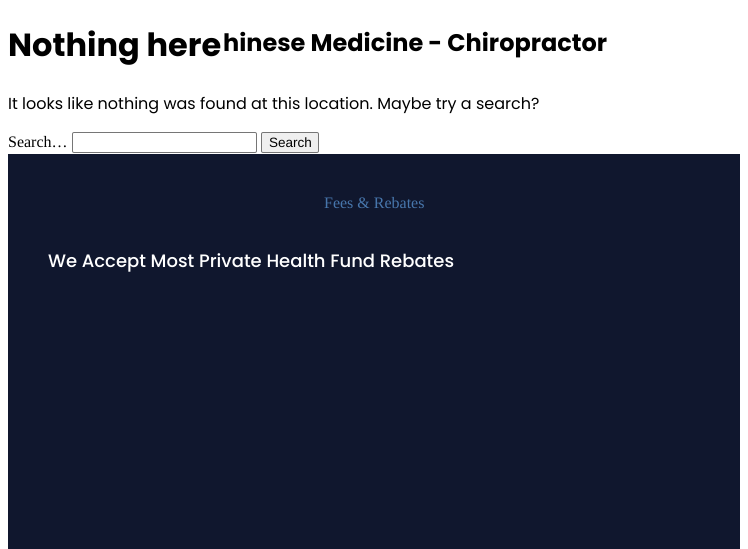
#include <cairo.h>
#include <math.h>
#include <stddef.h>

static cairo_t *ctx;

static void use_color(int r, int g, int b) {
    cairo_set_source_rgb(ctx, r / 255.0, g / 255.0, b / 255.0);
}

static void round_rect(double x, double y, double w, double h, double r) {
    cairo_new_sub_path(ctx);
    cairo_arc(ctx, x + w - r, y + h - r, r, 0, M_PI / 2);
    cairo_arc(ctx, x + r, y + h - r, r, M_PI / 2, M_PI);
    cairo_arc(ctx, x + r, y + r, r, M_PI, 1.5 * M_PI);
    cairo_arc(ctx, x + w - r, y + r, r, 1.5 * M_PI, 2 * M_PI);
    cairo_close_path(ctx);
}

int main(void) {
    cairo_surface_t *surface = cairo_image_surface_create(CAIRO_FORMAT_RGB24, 748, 549);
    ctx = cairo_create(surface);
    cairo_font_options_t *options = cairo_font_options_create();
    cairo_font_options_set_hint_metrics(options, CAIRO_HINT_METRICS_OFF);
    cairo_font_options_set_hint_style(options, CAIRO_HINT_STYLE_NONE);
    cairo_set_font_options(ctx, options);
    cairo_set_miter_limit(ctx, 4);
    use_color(255, 255, 255);
    cairo_paint(ctx);
    cairo_select_font_face(ctx, "Poppins", CAIRO_FONT_SLANT_NORMAL, CAIRO_FONT_WEIGHT_BOLD);
    cairo_set_font_size(ctx, 32);
    use_color(0, 0, 0);
    cairo_move_to(ctx, 8, 56);
    cairo_show_text(ctx, "Nothing here");
    cairo_set_font_size(ctx, 24);
    cairo_move_to(ctx, 223, 51);
    cairo_show_text(ctx, "hinese Medicine - Chiropractor");
    cairo_select_font_face(ctx, "Poppins", CAIRO_FONT_SLANT_NORMAL, CAIRO_FONT_WEIGHT_NORMAL);
    cairo_set_font_size(ctx, 16);
    cairo_move_to(ctx, 8, 109);
    cairo_show_text(ctx, "It looks like nothing was found at this location. Maybe try a search?");
    cairo_select_font_face(ctx, "Liberation Serif", CAIRO_FONT_SLANT_NORMAL, CAIRO_FONT_WEIGHT_NORMAL);
    cairo_move_to(ctx, 8, 147);
    cairo_show_text(ctx, "Search…");
    round_rect(72.5, 132.5, 184, 20, 1.5);
    use_color(118, 118, 118);
    cairo_set_line_width(ctx, 1);
    cairo_stroke(ctx);
    use_color(239, 239, 239);
    round_rect(261.5, 132.5, 57, 20, 1.5);
    cairo_fill_preserve(ctx);
    use_color(118, 118, 118);
    cairo_stroke(ctx);
    cairo_select_font_face(ctx, "Liberation Sans", CAIRO_FONT_SLANT_NORMAL, CAIRO_FONT_WEIGHT_NORMAL);
    cairo_set_font_size(ctx, 13.5);
    use_color(0, 0, 0);
    cairo_move_to(ctx, 269, 147);
    cairo_show_text(ctx, "Search");
    use_color(16, 23, 46);
    cairo_rectangle(ctx, 8, 154, 732, 395);
    cairo_fill(ctx);
    cairo_select_font_face(ctx, "Liberation Serif", CAIRO_FONT_SLANT_NORMAL, CAIRO_FONT_WEIGHT_NORMAL);
    cairo_set_font_size(ctx, 16);
    use_color(71, 118, 172);
    cairo_move_to(ctx, 324, 208);
    cairo_show_text(ctx, "Fees & Rebates");
    cairo_select_font_face(ctx, "Poppins Medium", CAIRO_FONT_SLANT_NORMAL, CAIRO_FONT_WEIGHT_NORMAL);
    cairo_set_font_size(ctx, 18);
    use_color(255, 255, 255);
    cairo_move_to(ctx, 48, 267);
    cairo_show_text(ctx, "We Accept Most Private Health Fund Rebates");
    cairo_surface_write_to_png(surface, "result.png");
    cairo_font_options_destroy(options);
    cairo_destroy(ctx);
    cairo_surface_destroy(surface);
    return 0;
}
